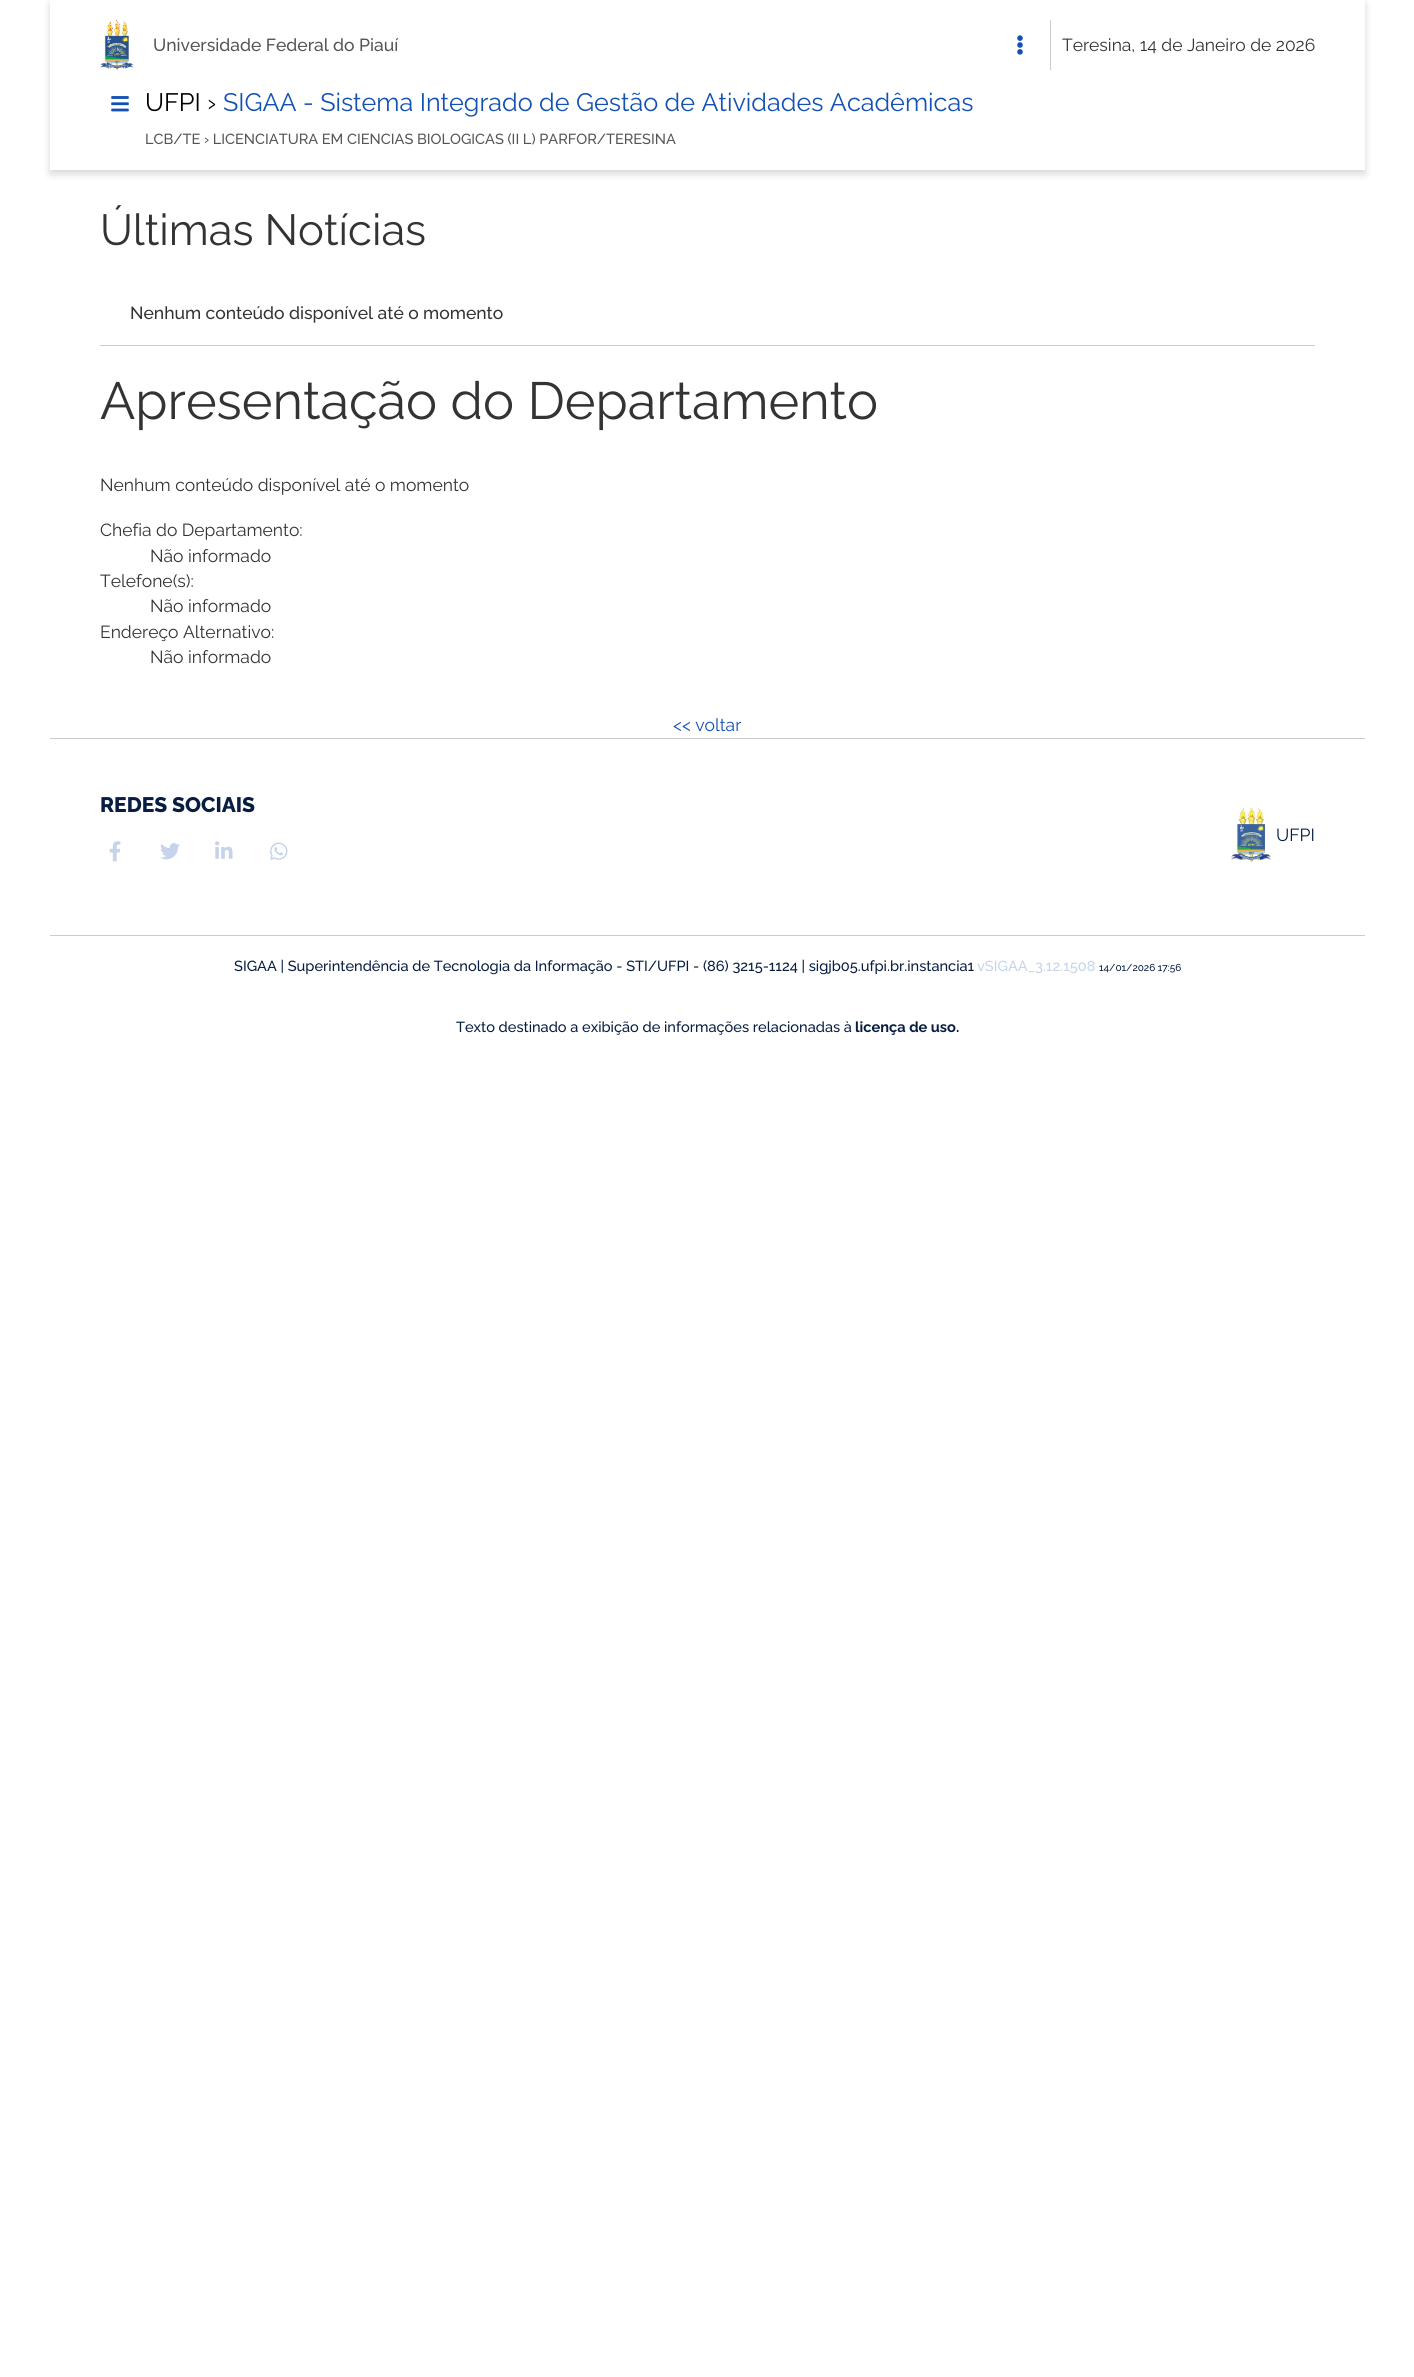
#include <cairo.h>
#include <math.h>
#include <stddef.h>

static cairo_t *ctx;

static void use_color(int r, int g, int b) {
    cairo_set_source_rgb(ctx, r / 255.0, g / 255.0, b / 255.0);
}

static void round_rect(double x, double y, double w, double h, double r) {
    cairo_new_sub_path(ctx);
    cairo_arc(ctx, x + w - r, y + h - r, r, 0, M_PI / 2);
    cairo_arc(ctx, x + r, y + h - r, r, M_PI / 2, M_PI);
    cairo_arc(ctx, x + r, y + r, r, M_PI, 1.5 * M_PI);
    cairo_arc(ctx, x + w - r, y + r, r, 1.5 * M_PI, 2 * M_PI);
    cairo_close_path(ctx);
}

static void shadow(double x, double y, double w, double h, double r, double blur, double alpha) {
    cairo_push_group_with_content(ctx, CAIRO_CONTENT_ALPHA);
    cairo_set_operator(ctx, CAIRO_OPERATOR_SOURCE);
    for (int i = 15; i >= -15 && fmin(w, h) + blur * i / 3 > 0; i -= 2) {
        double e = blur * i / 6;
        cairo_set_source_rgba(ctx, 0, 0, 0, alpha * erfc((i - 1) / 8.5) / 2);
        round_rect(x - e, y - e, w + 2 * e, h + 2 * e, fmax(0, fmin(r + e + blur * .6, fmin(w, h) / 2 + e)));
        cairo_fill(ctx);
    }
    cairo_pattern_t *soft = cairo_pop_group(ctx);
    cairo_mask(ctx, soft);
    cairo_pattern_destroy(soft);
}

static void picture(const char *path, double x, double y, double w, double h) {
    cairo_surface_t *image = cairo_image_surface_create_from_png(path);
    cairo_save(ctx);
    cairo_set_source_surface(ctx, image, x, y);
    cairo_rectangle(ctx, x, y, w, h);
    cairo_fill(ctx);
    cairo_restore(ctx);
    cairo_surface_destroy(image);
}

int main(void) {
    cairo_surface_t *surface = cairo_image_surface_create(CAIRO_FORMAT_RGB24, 1414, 2377);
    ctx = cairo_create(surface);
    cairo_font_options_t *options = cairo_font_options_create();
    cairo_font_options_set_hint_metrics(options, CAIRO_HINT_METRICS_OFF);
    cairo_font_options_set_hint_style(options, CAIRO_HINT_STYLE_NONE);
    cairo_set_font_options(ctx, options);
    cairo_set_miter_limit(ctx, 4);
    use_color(255, 255, 255);
    cairo_paint(ctx);
    cairo_save(ctx);
    cairo_set_fill_rule(ctx, CAIRO_FILL_RULE_EVEN_ODD);
    cairo_new_path(ctx);
    cairo_move_to(ctx, 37, 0);
    cairo_line_to(ctx, 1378, 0);
    cairo_line_to(ctx, 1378, 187);
    cairo_line_to(ctx, 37, 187);
    cairo_close_path(ctx);
    cairo_move_to(ctx, 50, 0);
    cairo_line_to(ctx, 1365, 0);
    cairo_line_to(ctx, 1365, 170);
    cairo_line_to(ctx, 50, 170);
    cairo_close_path(ctx);
    cairo_clip(ctx);
    use_color(0, 0, 0);
    shadow(50, 4, 1315, 170, 0, 4, 0.16);
    cairo_restore(ctx);
    picture("img1.png", 100, 20, 34, 50);
    cairo_select_font_face(ctx, "Raleway Medium", CAIRO_FONT_SLANT_NORMAL, CAIRO_FONT_WEIGHT_NORMAL);
    cairo_set_font_size(ctx, 17.5);
    use_color(85, 85, 85);
    cairo_move_to(ctx, 153, 51);
    cairo_show_text(ctx, "Universidade Federal do Piauí");
    picture("img2.png", 1017, 35, 6, 20);
    use_color(204, 204, 204);
    cairo_rectangle(ctx, 1050, 20, 1, 50);
    cairo_fill(ctx);
    cairo_select_font_face(ctx, "Raleway", CAIRO_FONT_SLANT_NORMAL, CAIRO_FONT_WEIGHT_NORMAL);
    use_color(51, 51, 51);
    cairo_move_to(ctx, 1062, 51);
    cairo_show_text(ctx, "Teresina, 14 de Janeiro de 2026");
    picture("img3.png", 111, 96, 18, 16);
    cairo_set_font_size(ctx, 25.2);
    use_color(0, 0, 0);
    cairo_move_to(ctx, 145, 111);
    cairo_show_text(ctx, "UFPI ›");
    use_color(19, 81, 180);
    cairo_move_to(ctx, 223, 111);
    cairo_show_text(ctx, "SIGAA - Sistema Integrado de Gestão de Atividades Acadêmicas");
    cairo_select_font_face(ctx, "Raleway Medium", CAIRO_FONT_SLANT_NORMAL, CAIRO_FONT_WEIGHT_NORMAL);
    cairo_set_font_size(ctx, 14.58);
    use_color(85, 85, 85);
    cairo_move_to(ctx, 145, 144);
    cairo_show_text(ctx, "LCB/TE › LICENCIATURA EM CIENCIAS BIOLOGICAS (II L) PARFOR/TERESINA");
    cairo_select_font_face(ctx, "Raleway", CAIRO_FONT_SLANT_NORMAL, CAIRO_FONT_WEIGHT_NORMAL);
    cairo_set_font_size(ctx, 43.5);
    use_color(51, 51, 51);
    cairo_move_to(ctx, 100, 245);
    cairo_show_text(ctx, "Últimas Notícias");
    use_color(204, 204, 204);
    cairo_rectangle(ctx, 100, 345, 1215, 1);
    cairo_fill(ctx);
    cairo_select_font_face(ctx, "Raleway Medium", CAIRO_FONT_SLANT_NORMAL, CAIRO_FONT_WEIGHT_NORMAL);
    cairo_set_font_size(ctx, 17.5);
    use_color(51, 51, 51);
    cairo_move_to(ctx, 130, 319);
    cairo_show_text(ctx, "Nenhum conteúdo disponível até o momento");
    cairo_select_font_face(ctx, "Raleway", CAIRO_FONT_SLANT_NORMAL, CAIRO_FONT_WEIGHT_NORMAL);
    cairo_set_font_size(ctx, 52.25);
    cairo_move_to(ctx, 100, 419);
    cairo_show_text(ctx, "Apresentação do Departamento");
    cairo_set_font_size(ctx, 17.5);
    cairo_move_to(ctx, 100, 491);
    cairo_show_text(ctx, "Nenhum conteúdo disponível até o momento");
    cairo_move_to(ctx, 100, 536);
    cairo_show_text(ctx, "Chefia do Departamento:");
    cairo_move_to(ctx, 150, 562);
    cairo_show_text(ctx, "Não informado");
    cairo_move_to(ctx, 100, 587);
    cairo_show_text(ctx, "Telefone(s):");
    cairo_move_to(ctx, 150, 612);
    cairo_show_text(ctx, "Não informado");
    cairo_move_to(ctx, 100, 638);
    cairo_show_text(ctx, "Endereço Alternativo:");
    cairo_move_to(ctx, 150, 663);
    cairo_show_text(ctx, "Não informado");
    use_color(19, 81, 180);
    cairo_move_to(ctx, 673, 731);
    cairo_show_text(ctx, "<< voltar");
    use_color(204, 204, 204);
    cairo_rectangle(ctx, 50, 738, 1315, 1);
    cairo_fill(ctx);
    cairo_select_font_face(ctx, "Raleway ExtraBold", CAIRO_FONT_SLANT_NORMAL, CAIRO_FONT_WEIGHT_NORMAL);
    cairo_set_font_size(ctx, 21);
    use_color(7, 29, 65);
    cairo_move_to(ctx, 100, 812);
    cairo_show_text(ctx, "REDES SOCIAIS");
    picture("img4.png", 109, 841, 12, 21);
    picture("img5.png", 160, 843, 20, 17);
    picture("img6.png", 215, 841, 18, 18);
    picture("img7.png", 270, 842, 18, 18);
    picture("img8.png", 1231, 807, 40, 55);
    cairo_select_font_face(ctx, "Raleway", CAIRO_FONT_SLANT_NORMAL, CAIRO_FONT_WEIGHT_NORMAL);
    cairo_set_font_size(ctx, 17.5);
    cairo_move_to(ctx, 1276, 841);
    cairo_show_text(ctx, "UFPI");
    use_color(204, 204, 204);
    cairo_rectangle(ctx, 50, 935, 1315, 1);
    cairo_fill(ctx);
    cairo_select_font_face(ctx, "Raleway Medium", CAIRO_FONT_SLANT_NORMAL, CAIRO_FONT_WEIGHT_NORMAL);
    cairo_set_font_size(ctx, 14.58);
    use_color(7, 29, 65);
    cairo_move_to(ctx, 234, 971);
    cairo_show_text(ctx, "SIGAA | Superintendência de Tecnologia da Informação - STI/UFPI - (86) 3215-1124 | sigjb05.ufpi.br.instancia1");
    use_color(197, 212, 235);
    cairo_move_to(ctx, 977, 971);
    cairo_show_text(ctx, "vSIGAA_3.12.1508");
    cairo_set_font_size(ctx, 10);
    use_color(7, 29, 65);
    cairo_move_to(ctx, 1099, 971);
    cairo_show_text(ctx, "14/01/2026 17:56");
    cairo_set_font_size(ctx, 14.58);
    cairo_move_to(ctx, 456, 1032);
    cairo_show_text(ctx, "Texto destinado a exibição de informações relacionadas à");
    cairo_select_font_face(ctx, "Raleway", CAIRO_FONT_SLANT_NORMAL, CAIRO_FONT_WEIGHT_BOLD);
    cairo_move_to(ctx, 855, 1032);
    cairo_show_text(ctx, "licença de uso.");
    cairo_surface_write_to_png(surface, "result.png");
    cairo_font_options_destroy(options);
    cairo_destroy(ctx);
    cairo_surface_destroy(surface);
    return 0;
}
